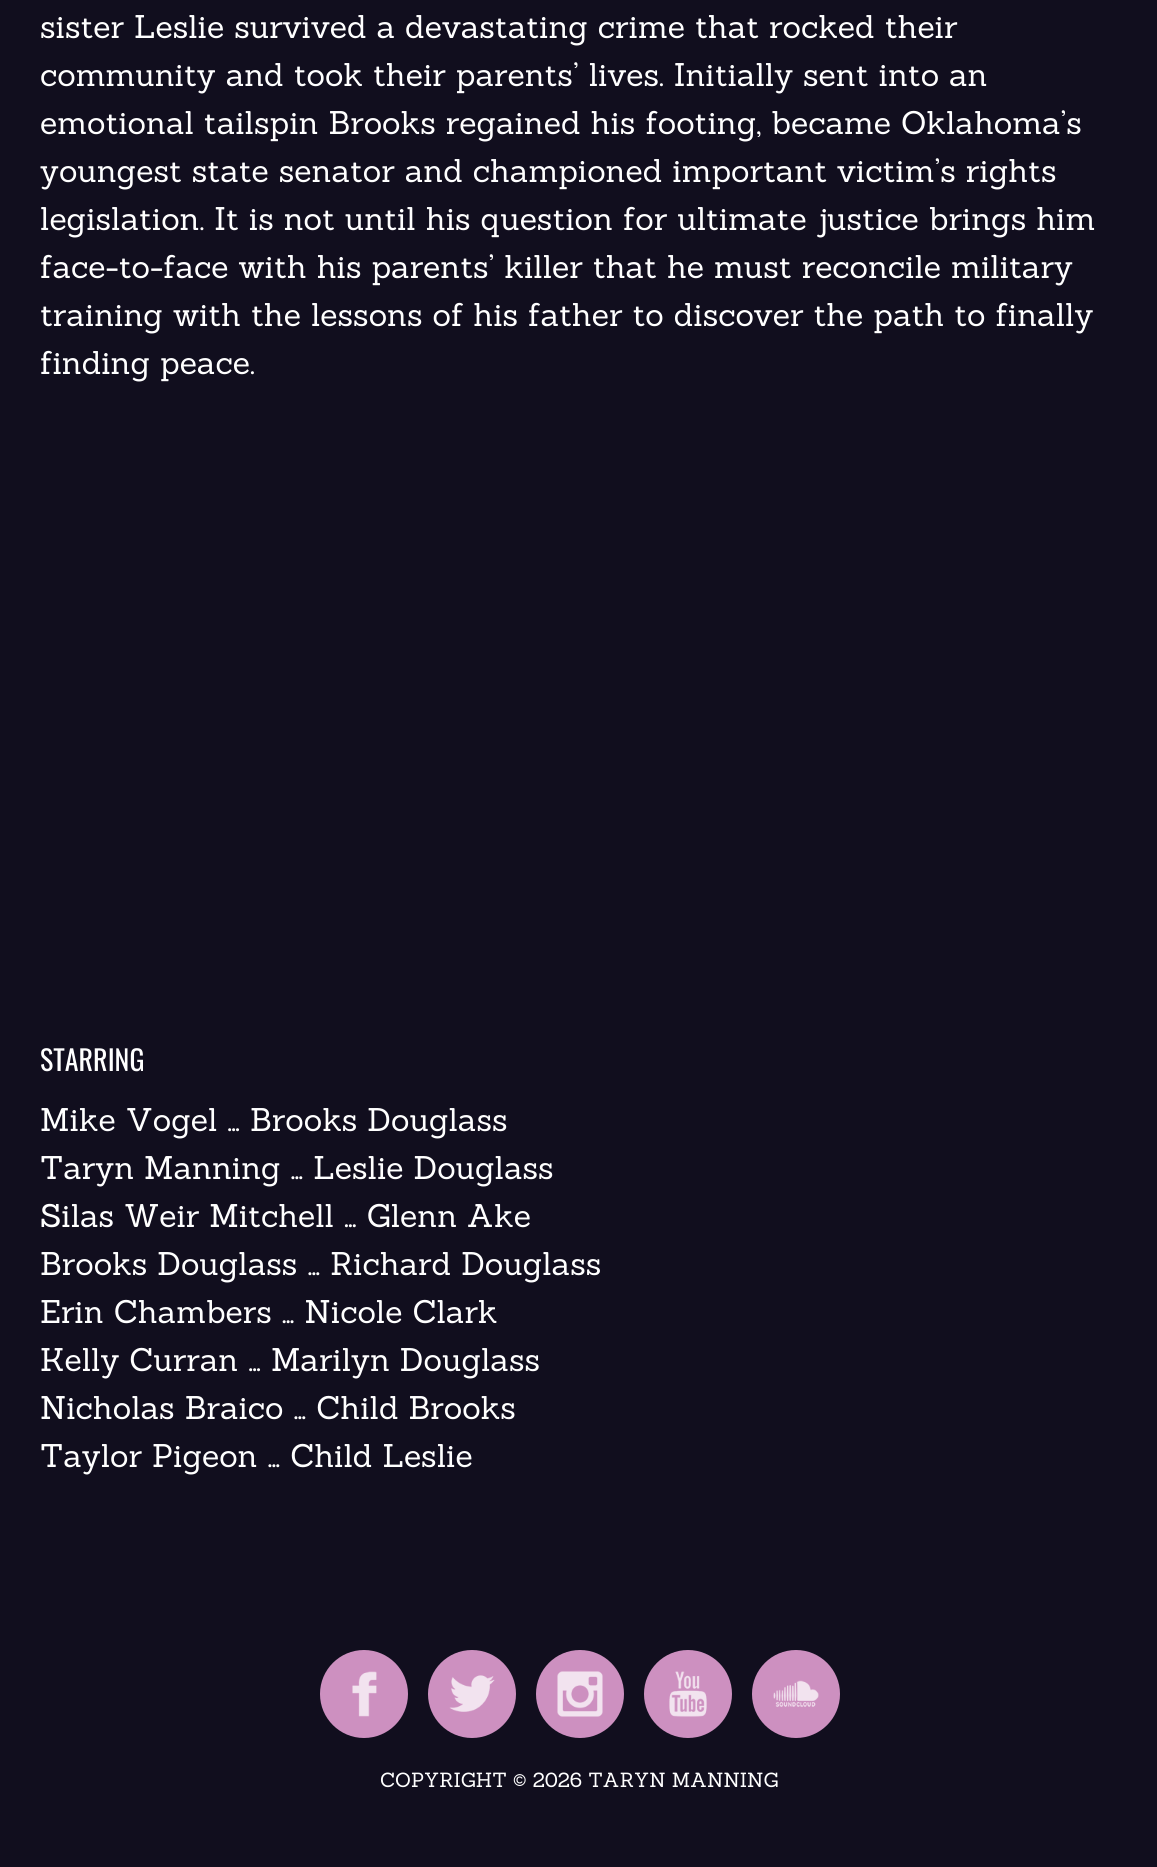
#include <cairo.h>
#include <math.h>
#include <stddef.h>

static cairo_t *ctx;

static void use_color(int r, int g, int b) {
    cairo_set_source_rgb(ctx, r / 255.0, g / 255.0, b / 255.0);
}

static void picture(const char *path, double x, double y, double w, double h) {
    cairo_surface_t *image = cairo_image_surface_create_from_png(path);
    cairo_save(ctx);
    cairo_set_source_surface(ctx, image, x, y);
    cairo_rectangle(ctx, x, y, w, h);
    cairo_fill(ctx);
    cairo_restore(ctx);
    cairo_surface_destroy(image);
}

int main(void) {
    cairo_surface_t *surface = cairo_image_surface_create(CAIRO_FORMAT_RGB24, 1157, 1867);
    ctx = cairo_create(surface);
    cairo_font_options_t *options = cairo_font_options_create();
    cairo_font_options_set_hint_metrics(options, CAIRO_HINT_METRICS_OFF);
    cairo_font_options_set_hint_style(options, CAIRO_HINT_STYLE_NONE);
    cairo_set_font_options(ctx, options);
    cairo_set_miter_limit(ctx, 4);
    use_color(17, 14, 30);
    cairo_paint(ctx);
    cairo_select_font_face(ctx, "Sanchez", CAIRO_FONT_SLANT_NORMAL, CAIRO_FONT_WEIGHT_NORMAL);
    cairo_set_font_size(ctx, 32);
    use_color(255, 255, 255);
    cairo_move_to(ctx, 40, 38);
    cairo_show_text(ctx, "sister Leslie survived a devastating crime that rocked their");
    cairo_move_to(ctx, 40, 86);
    cairo_show_text(ctx, "community and took their parents’ lives. Initially sent into an");
    cairo_move_to(ctx, 40, 134);
    cairo_show_text(ctx, "emotional tailspin Brooks regained his footing, became Oklahoma’s");
    cairo_move_to(ctx, 40, 182);
    cairo_show_text(ctx, "youngest state senator and championed important victim’s rights");
    cairo_move_to(ctx, 40, 230);
    cairo_show_text(ctx, "legislation. It is not until his question for ultimate justice brings him");
    cairo_move_to(ctx, 40, 278);
    cairo_show_text(ctx, "face-to-face with his parents’ killer that he must reconcile military");
    cairo_move_to(ctx, 40, 326);
    cairo_show_text(ctx, "training with the lessons of his father to discover the path to finally");
    cairo_move_to(ctx, 40, 374);
    cairo_show_text(ctx, "finding peace.");
    cairo_select_font_face(ctx, "Oswald", CAIRO_FONT_SLANT_NORMAL, CAIRO_FONT_WEIGHT_NORMAL);
    cairo_set_font_size(ctx, 28);
    cairo_move_to(ctx, 40, 1071);
    cairo_show_text(ctx, "STARRING");
    cairo_select_font_face(ctx, "Sanchez", CAIRO_FONT_SLANT_NORMAL, CAIRO_FONT_WEIGHT_NORMAL);
    cairo_set_font_size(ctx, 32);
    cairo_move_to(ctx, 40, 1131);
    cairo_show_text(ctx, "Mike Vogel … Brooks Douglass");
    cairo_move_to(ctx, 40, 1179);
    cairo_show_text(ctx, "Taryn Manning … Leslie Douglass");
    cairo_move_to(ctx, 40, 1227);
    cairo_show_text(ctx, "Silas Weir Mitchell … Glenn Ake");
    cairo_move_to(ctx, 40, 1275);
    cairo_show_text(ctx, "Brooks Douglass … Richard Douglass");
    cairo_move_to(ctx, 40, 1323);
    cairo_show_text(ctx, "Erin Chambers … Nicole Clark");
    cairo_move_to(ctx, 40, 1371);
    cairo_show_text(ctx, "Kelly Curran … Marilyn Douglass");
    cairo_move_to(ctx, 40, 1419);
    cairo_show_text(ctx, "Nicholas Braico … Child Brooks");
    cairo_move_to(ctx, 40, 1467);
    cairo_show_text(ctx, "Taylor Pigeon … Child Leslie");
    use_color(205, 144, 192);
    cairo_new_path(ctx);
    cairo_arc(ctx, 364, 1694, 44, 0, 2 * M_PI);
    cairo_fill(ctx);
    picture("img1.png", 352, 1671, 25, 46);
    cairo_arc(ctx, 472, 1694, 44, 0, 2 * M_PI);
    cairo_fill(ctx);
    picture("img2.png", 449, 1675, 46, 37);
    cairo_arc(ctx, 580, 1694, 44, 0, 2 * M_PI);
    cairo_fill(ctx);
    picture("img3.png", 557, 1671, 46, 46);
    cairo_arc(ctx, 688, 1694, 44, 0, 2 * M_PI);
    cairo_fill(ctx);
    picture("img4.png", 669, 1671, 38, 46);
    cairo_arc(ctx, 796, 1694, 44, 0, 2 * M_PI);
    cairo_fill(ctx);
    picture("img5.png", 773, 1680, 46, 27);
    cairo_set_font_size(ctx, 20);
    use_color(255, 255, 255);
    cairo_move_to(ctx, 380, 1787);
    cairo_show_text(ctx, "COPYRIGHT © 2026 TARYN MANNING");
    cairo_surface_write_to_png(surface, "result.png");
    cairo_font_options_destroy(options);
    cairo_destroy(ctx);
    cairo_surface_destroy(surface);
    return 0;
}
